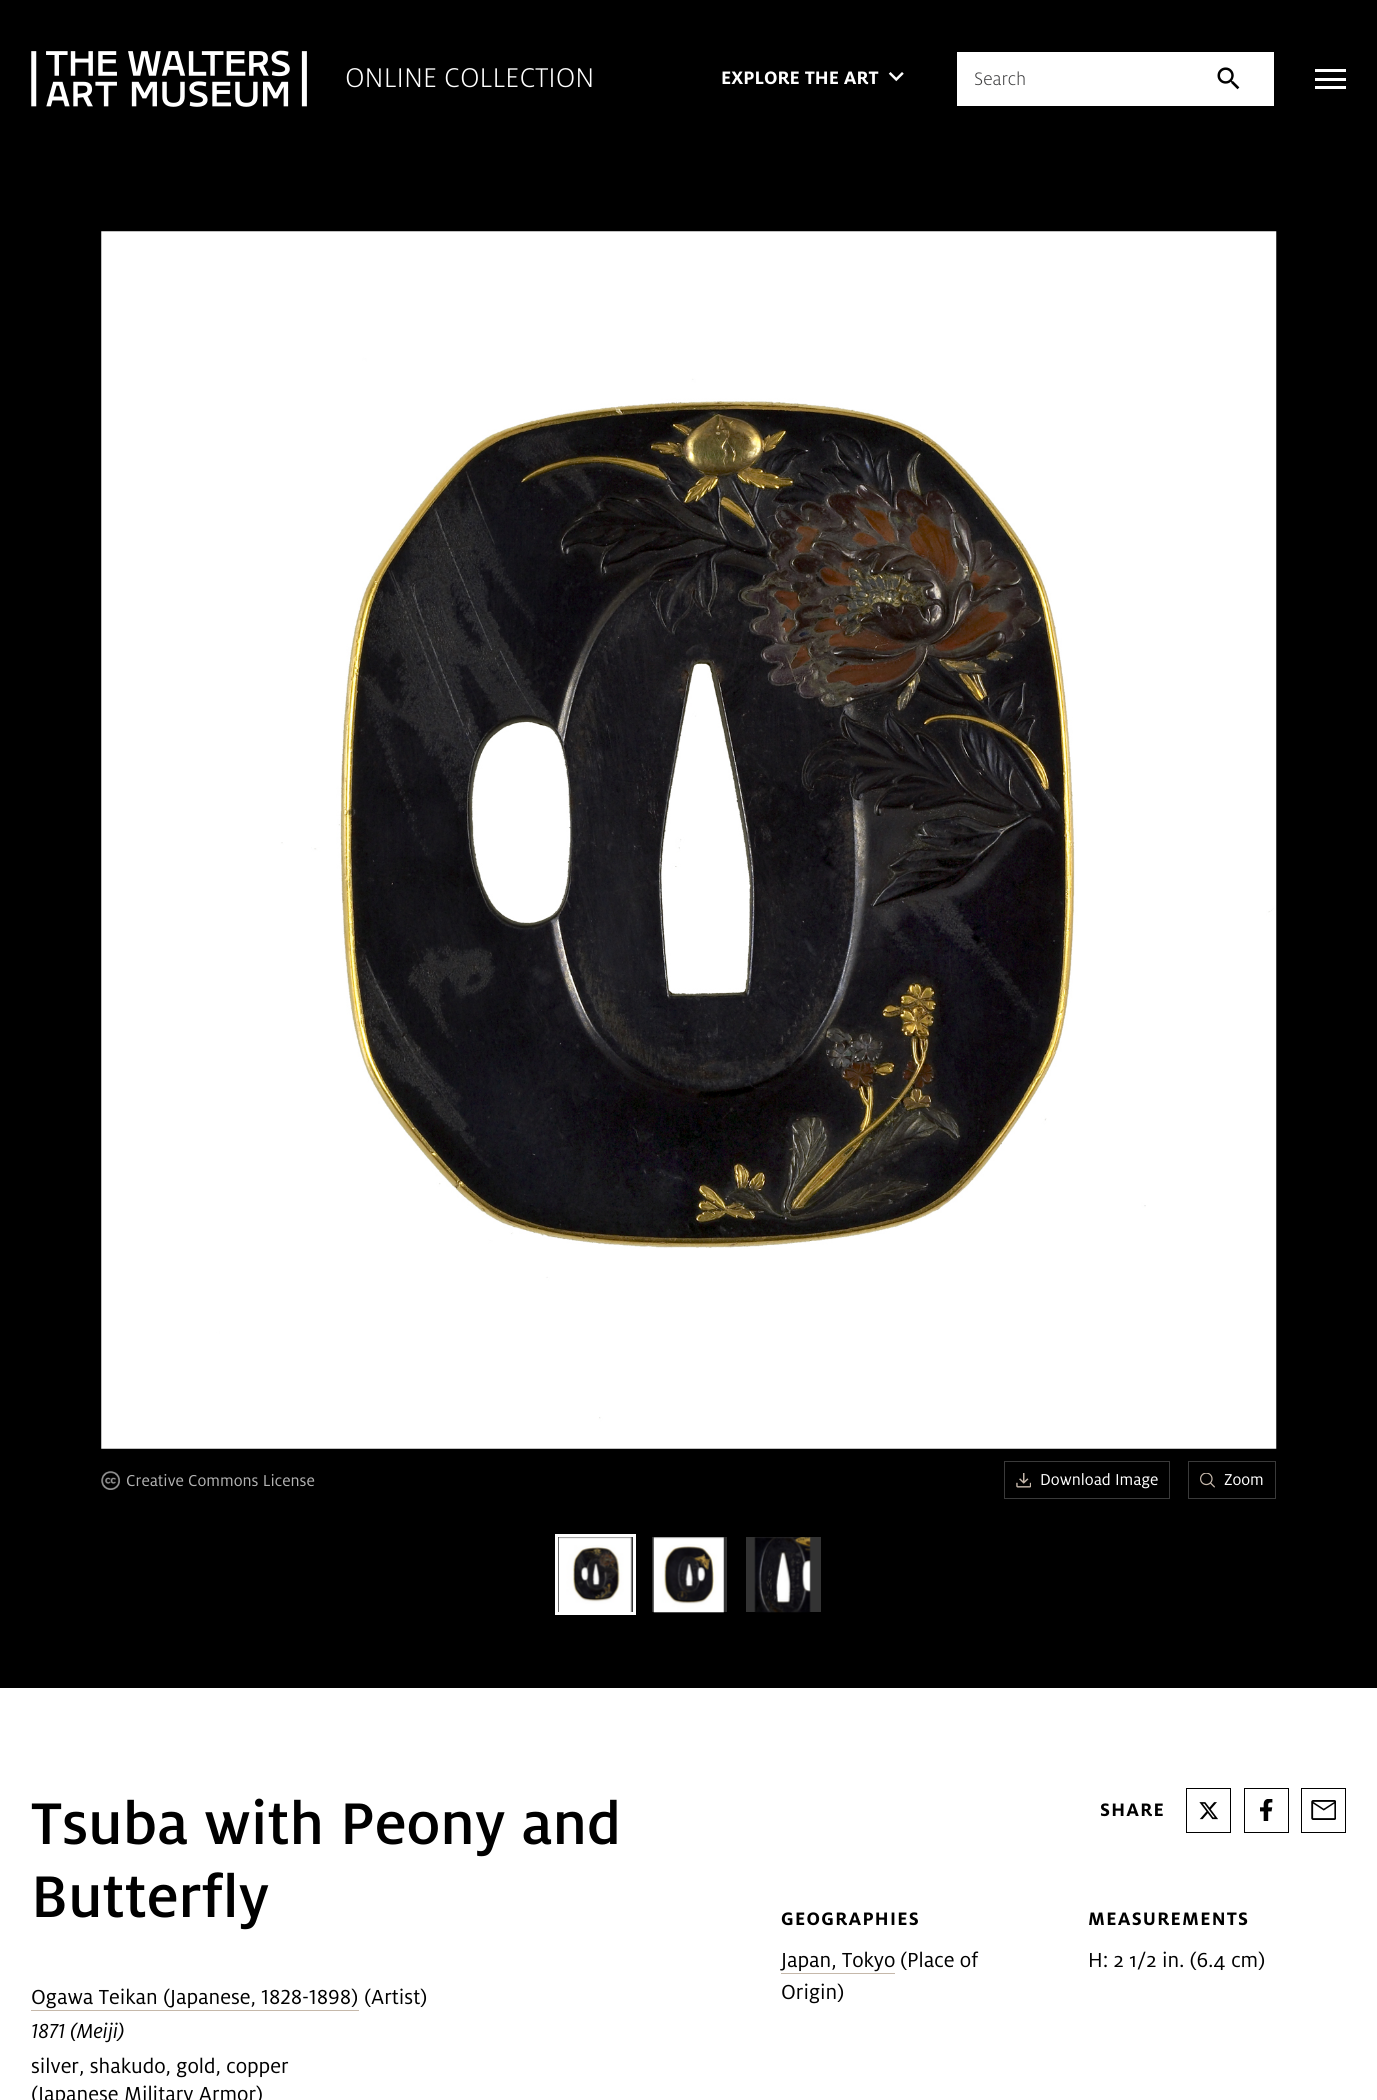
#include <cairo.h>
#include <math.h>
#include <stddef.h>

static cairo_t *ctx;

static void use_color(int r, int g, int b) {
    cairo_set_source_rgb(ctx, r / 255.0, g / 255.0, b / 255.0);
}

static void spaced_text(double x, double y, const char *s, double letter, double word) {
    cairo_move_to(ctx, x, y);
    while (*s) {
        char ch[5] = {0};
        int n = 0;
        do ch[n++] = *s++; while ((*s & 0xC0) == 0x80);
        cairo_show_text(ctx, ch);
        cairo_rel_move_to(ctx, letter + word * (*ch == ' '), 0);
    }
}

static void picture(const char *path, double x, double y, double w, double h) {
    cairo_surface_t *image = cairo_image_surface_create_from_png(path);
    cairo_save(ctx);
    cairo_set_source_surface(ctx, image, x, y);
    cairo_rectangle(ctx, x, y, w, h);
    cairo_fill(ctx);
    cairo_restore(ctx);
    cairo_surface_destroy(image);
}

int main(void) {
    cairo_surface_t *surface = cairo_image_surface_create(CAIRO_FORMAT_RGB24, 1377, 2100);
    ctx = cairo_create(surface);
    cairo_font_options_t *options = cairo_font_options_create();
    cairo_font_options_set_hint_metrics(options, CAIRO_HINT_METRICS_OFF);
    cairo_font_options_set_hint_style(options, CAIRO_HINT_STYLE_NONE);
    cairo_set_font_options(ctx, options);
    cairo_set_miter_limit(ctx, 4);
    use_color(255, 255, 255);
    cairo_paint(ctx);
    use_color(0, 0, 0);
    cairo_rectangle(ctx, 0, 0, 1377, 1688);
    cairo_fill(ctx);
    picture("img1.png", 31, 50, 276, 57);
    cairo_select_font_face(ctx, "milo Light", CAIRO_FONT_SLANT_NORMAL, CAIRO_FONT_WEIGHT_NORMAL);
    cairo_set_font_size(ctx, 30);
    use_color(255, 255, 255);
    cairo_move_to(ctx, 345, 87);
    cairo_show_text(ctx, "ONLINE COLLECTION");
    cairo_select_font_face(ctx, "milo", CAIRO_FONT_SLANT_NORMAL, CAIRO_FONT_WEIGHT_BOLD);
    cairo_set_font_size(ctx, 20);
    cairo_move_to(ctx, 721, 84);
    cairo_show_text(ctx, "EXPLORE THE ART");
    picture("img2.png", 888, 72, 16, 10);
    cairo_rectangle(ctx, 957, 52, 317, 54);
    cairo_fill(ctx);
    cairo_select_font_face(ctx, "milo Light", CAIRO_FONT_SLANT_NORMAL, CAIRO_FONT_WEIGHT_NORMAL);
    use_color(66, 66, 67);
    cairo_move_to(ctx, 974, 85);
    cairo_show_text(ctx, "Search");
    picture("img3.png", 1217, 67, 23, 23);
    use_color(255, 255, 255);
    cairo_rectangle(ctx, 1315, 69, 31, 3);
    cairo_fill(ctx);
    cairo_rectangle(ctx, 1315, 78, 31, 3);
    cairo_fill(ctx);
    cairo_rectangle(ctx, 1315, 86, 31, 3);
    cairo_fill(ctx);
    picture("img4.png", 101, 231, 1176, 1218);
    picture("img5.png", 101, 1471, 19, 19);
    cairo_select_font_face(ctx, "milo", CAIRO_FONT_SLANT_NORMAL, CAIRO_FONT_WEIGHT_NORMAL);
    cairo_set_font_size(ctx, 17.5);
    use_color(179, 179, 179);
    cairo_move_to(ctx, 126, 1486);
    cairo_show_text(ctx, "Creative Commons License");
    cairo_rectangle(ctx, 1004.5, 1461.5, 165, 37);
    use_color(58, 58, 58);
    cairo_set_line_width(ctx, 1);
    cairo_stroke(ctx);
    picture("img6.png", 1016, 1473, 15, 15);
    use_color(255, 255, 255);
    cairo_move_to(ctx, 1040, 1485);
    cairo_show_text(ctx, "Download Image");
    cairo_rectangle(ctx, 1188.5, 1461.5, 87, 37);
    use_color(58, 58, 58);
    cairo_stroke(ctx);
    picture("img7.png", 1200, 1473, 15, 15);
    use_color(255, 255, 255);
    cairo_move_to(ctx, 1224, 1485);
    cairo_show_text(ctx, "Zoom");
    use_color(51, 51, 51);
    cairo_rectangle(ctx, 556.5, 1535.5, 78, 78);
    cairo_fill_preserve(ctx);
    use_color(255, 255, 255);
    cairo_set_line_width(ctx, 3);
    cairo_stroke(ctx);
    picture("img8.png", 558, 1537, 74, 75);
    use_color(51, 51, 51);
    cairo_rectangle(ctx, 652, 1537, 75, 75);
    cairo_fill(ctx);
    picture("img9.png", 653, 1537, 71, 76);
    cairo_rectangle(ctx, 746, 1537, 75, 75);
    cairo_fill(ctx);
    picture("img10.png", 754, 1537, 57, 76);
    cairo_select_font_face(ctx, "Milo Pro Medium", CAIRO_FONT_SLANT_NORMAL, CAIRO_FONT_WEIGHT_NORMAL);
    cairo_set_font_size(ctx, 65);
    use_color(0, 0, 0);
    cairo_move_to(ctx, 31, 1844);
    cairo_show_text(ctx, "Tsuba with Peony and");
    cairo_move_to(ctx, 31, 1917);
    cairo_show_text(ctx, "Butterfly");
    cairo_select_font_face(ctx, "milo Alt", CAIRO_FONT_SLANT_NORMAL, CAIRO_FONT_WEIGHT_NORMAL);
    cairo_set_font_size(ctx, 22.5);
    cairo_move_to(ctx, 31, 2004);
    cairo_show_text(ctx, "Ogawa Teikan (Japanese, 1828-1898)");
    use_color(197, 184, 170);
    cairo_rectangle(ctx, 31, 2010, 328, 1);
    cairo_fill(ctx);
    cairo_select_font_face(ctx, "milo", CAIRO_FONT_SLANT_NORMAL, CAIRO_FONT_WEIGHT_NORMAL);
    use_color(0, 0, 0);
    cairo_move_to(ctx, 364, 2004);
    cairo_show_text(ctx, "(Artist)");
    cairo_select_font_face(ctx, "milo Alt", CAIRO_FONT_SLANT_ITALIC, CAIRO_FONT_WEIGHT_NORMAL);
    cairo_move_to(ctx, 31, 2038);
    cairo_show_text(ctx, "1871 (Meiji)");
    cairo_select_font_face(ctx, "milo", CAIRO_FONT_SLANT_NORMAL, CAIRO_FONT_WEIGHT_NORMAL);
    cairo_move_to(ctx, 31, 2073);
    cairo_show_text(ctx, "silver, shakudo, gold, copper");
    cairo_move_to(ctx, 31, 2101);
    cairo_show_text(ctx, "(Japanese Military Armor)");
    cairo_select_font_face(ctx, "milo", CAIRO_FONT_SLANT_NORMAL, CAIRO_FONT_WEIGHT_BOLD);
    cairo_set_font_size(ctx, 20);
    spaced_text(1100, 1816, "SHARE", 1.25, 0);
    cairo_rectangle(ctx, 1186.5, 1788.5, 44, 44);
    cairo_set_line_width(ctx, 1);
    cairo_stroke(ctx);
    picture("img11.png", 1199, 1802, 19, 18);
    cairo_rectangle(ctx, 1244.5, 1788.5, 44, 44);
    cairo_stroke(ctx);
    picture("img12.png", 1260, 1799, 13, 22);
    cairo_rectangle(ctx, 1301.5, 1788.5, 44, 44);
    cairo_stroke(ctx);
    picture("img13.png", 1311, 1800, 25, 20);
    spaced_text(781, 1925, "GEOGRAPHIES", 1.25, 0);
    cairo_select_font_face(ctx, "milo", CAIRO_FONT_SLANT_NORMAL, CAIRO_FONT_WEIGHT_NORMAL);
    cairo_set_font_size(ctx, 22.5);
    cairo_move_to(ctx, 781, 1967);
    cairo_show_text(ctx, "Japan, Tokyo");
    use_color(197, 184, 170);
    cairo_rectangle(ctx, 781, 1973, 114, 1);
    cairo_fill(ctx);
    use_color(0, 0, 0);
    cairo_move_to(ctx, 900, 1967);
    cairo_show_text(ctx, "(Place of");
    cairo_move_to(ctx, 781, 1999);
    cairo_show_text(ctx, "Origin)");
    cairo_select_font_face(ctx, "milo", CAIRO_FONT_SLANT_NORMAL, CAIRO_FONT_WEIGHT_BOLD);
    cairo_set_font_size(ctx, 20);
    spaced_text(1088, 1925, "MEASUREMENTS", 1.25, 0);
    cairo_select_font_face(ctx, "milo", CAIRO_FONT_SLANT_NORMAL, CAIRO_FONT_WEIGHT_NORMAL);
    cairo_set_font_size(ctx, 22.5);
    cairo_move_to(ctx, 1088, 1967);
    cairo_show_text(ctx, "H: 2 1/2 in. (6.4 cm)");
    cairo_surface_write_to_png(surface, "result.png");
    cairo_font_options_destroy(options);
    cairo_destroy(ctx);
    cairo_surface_destroy(surface);
    return 0;
}
